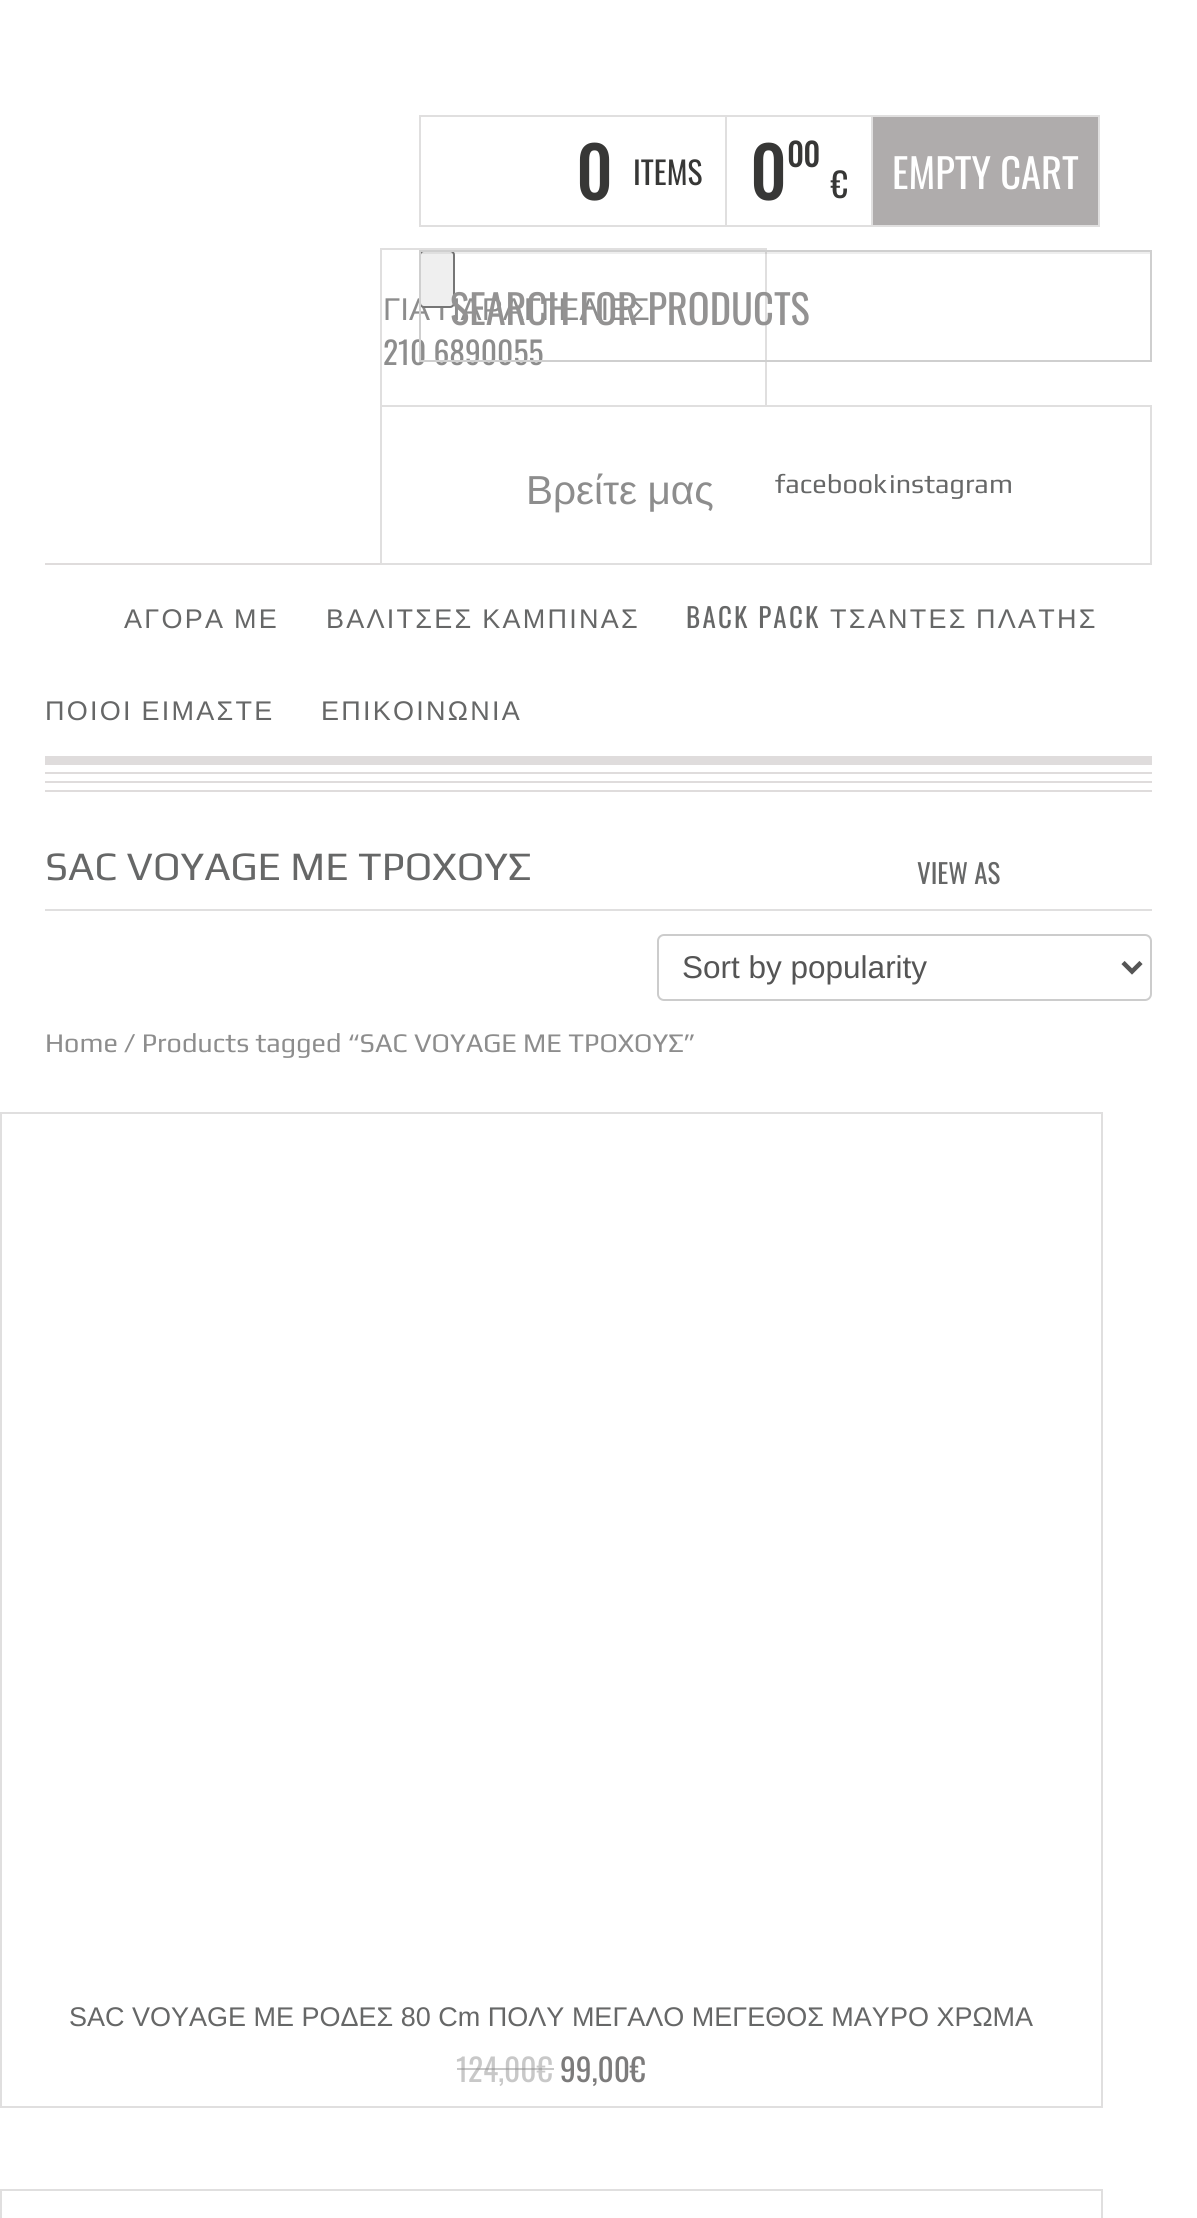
#include <cairo.h>
#include <math.h>
#include <stddef.h>

static cairo_t *ctx;

static void use_color(int r, int g, int b) {
    cairo_set_source_rgb(ctx, r / 255.0, g / 255.0, b / 255.0);
}

static void spaced_text(double x, double y, const char *s, double letter, double word) {
    cairo_move_to(ctx, x, y);
    while (*s) {
        char ch[5] = {0};
        int n = 0;
        do ch[n++] = *s++; while ((*s & 0xC0) == 0x80);
        cairo_show_text(ctx, ch);
        cairo_rel_move_to(ctx, letter + word * (*ch == ' '), 0);
    }
}

static void round_rect(double x, double y, double w, double h, double r) {
    cairo_new_sub_path(ctx);
    cairo_arc(ctx, x + w - r, y + h - r, r, 0, M_PI / 2);
    cairo_arc(ctx, x + r, y + h - r, r, M_PI / 2, M_PI);
    cairo_arc(ctx, x + r, y + r, r, M_PI, 1.5 * M_PI);
    cairo_arc(ctx, x + w - r, y + r, r, 1.5 * M_PI, 2 * M_PI);
    cairo_close_path(ctx);
}

int main(void) {
    cairo_surface_t *surface = cairo_image_surface_create(CAIRO_FORMAT_RGB24, 1197, 2218);
    ctx = cairo_create(surface);
    cairo_font_options_t *options = cairo_font_options_create();
    cairo_font_options_set_hint_metrics(options, CAIRO_HINT_METRICS_OFF);
    cairo_font_options_set_hint_style(options, CAIRO_HINT_STYLE_NONE);
    cairo_set_font_options(ctx, options);
    cairo_set_miter_limit(ctx, 4);
    use_color(255, 255, 255);
    cairo_paint(ctx);
    cairo_rectangle(ctx, 420, 116, 306, 110);
    use_color(224, 223, 223);
    cairo_stroke(ctx);
    cairo_select_font_face(ctx, "Oswald", CAIRO_FONT_SLANT_NORMAL, CAIRO_FONT_WEIGHT_BOLD);
    cairo_set_font_size(ctx, 68);
    use_color(55, 55, 54);
    cairo_move_to(ctx, 576, 200);
    cairo_show_text(ctx, "0");
    cairo_select_font_face(ctx, "Oswald", CAIRO_FONT_SLANT_NORMAL, CAIRO_FONT_WEIGHT_NORMAL);
    cairo_set_font_size(ctx, 31.5);
    cairo_move_to(ctx, 633, 185);
    cairo_show_text(ctx, "ITEMS");
    cairo_rectangle(ctx, 726, 116, 146, 110);
    use_color(224, 223, 223);
    cairo_stroke(ctx);
    cairo_select_font_face(ctx, "Oswald", CAIRO_FONT_SLANT_NORMAL, CAIRO_FONT_WEIGHT_BOLD);
    cairo_set_font_size(ctx, 68);
    use_color(55, 55, 54);
    cairo_move_to(ctx, 750, 200);
    cairo_show_text(ctx, "0");
    cairo_set_font_size(ctx, 31.5);
    cairo_move_to(ctx, 787, 167);
    cairo_show_text(ctx, "00");
    cairo_select_font_face(ctx, "Oswald", CAIRO_FONT_SLANT_NORMAL, CAIRO_FONT_WEIGHT_NORMAL);
    cairo_set_font_size(ctx, 34);
    cairo_move_to(ctx, 831, 198);
    cairo_show_text(ctx, "€");
    use_color(175, 172, 172);
    cairo_rectangle(ctx, 872, 116, 227, 110);
    cairo_fill_preserve(ctx);
    use_color(224, 223, 223);
    cairo_stroke(ctx);
    cairo_set_font_size(ctx, 40.5);
    use_color(255, 255, 255);
    cairo_move_to(ctx, 892, 189);
    cairo_show_text(ctx, "EMPTY CART");
    cairo_rectangle(ctx, 381, 249, 385, 157);
    use_color(224, 223, 223);
    cairo_stroke(ctx);
    cairo_select_font_face(ctx, "Liberation Sans", CAIRO_FONT_SLANT_NORMAL, CAIRO_FONT_WEIGHT_NORMAL);
    cairo_set_font_size(ctx, 31.5);
    use_color(141, 141, 141);
    spaced_text(383, 320, "ΓΙΑ ΠΑΡΑΓΓΕΛΙΕΣ", 0, -1);
    use_color(239, 239, 239);
    round_rect(420, 251, 34, 56, 4);
    cairo_fill_preserve(ctx);
    use_color(118, 118, 118);
    cairo_stroke(ctx);
    cairo_set_source_rgba(ctx, 0, 0, 0, 0.07);
    cairo_rectangle(ctx, 421, 252, 729, 2);
    cairo_fill(ctx);
    cairo_select_font_face(ctx, "Oswald", CAIRO_FONT_SLANT_NORMAL, CAIRO_FONT_WEIGHT_NORMAL);
    use_color(141, 141, 141);
    cairo_move_to(ctx, 383, 365);
    cairo_show_text(ctx, "210 6890055");
    cairo_rectangle(ctx, 420, 251, 731, 110);
    use_color(207, 207, 207);
    cairo_stroke(ctx);
    cairo_set_font_size(ctx, 40.5);
    use_color(147, 146, 146);
    cairo_move_to(ctx, 450, 325);
    cairo_show_text(ctx, "SEARCH FOR PRODUCTS");
    cairo_rectangle(ctx, 381, 406, 770, 158);
    use_color(224, 223, 223);
    cairo_stroke(ctx);
    cairo_select_font_face(ctx, "Liberation Sans", CAIRO_FONT_SLANT_NORMAL, CAIRO_FONT_WEIGHT_NORMAL);
    use_color(141, 141, 141);
    spaced_text(526, 504, "Βρείτε μας", 0, -1);
    cairo_select_font_face(ctx, "Play", CAIRO_FONT_SLANT_NORMAL, CAIRO_FONT_WEIGHT_NORMAL);
    cairo_set_font_size(ctx, 27);
    use_color(102, 103, 103);
    cairo_move_to(ctx, 775, 493);
    cairo_show_text(ctx, "facebook");
    cairo_move_to(ctx, 889, 493);
    cairo_show_text(ctx, "instagram");
    use_color(223, 220, 220);
    cairo_rectangle(ctx, 45, 563, 335, 2);
    cairo_fill(ctx);
    cairo_select_font_face(ctx, "Liberation Sans", CAIRO_FONT_SLANT_NORMAL, CAIRO_FONT_WEIGHT_NORMAL);
    use_color(102, 103, 103);
    spaced_text(124, 628, "ΑΓΟΡΑ ΜΕ", 2.25, -1);
    spaced_text(326, 628, "ΒΑΛΙΤΣΕΣ ΚΑΜΠΙΝΑΣ", 2.25, -1);
    cairo_select_font_face(ctx, "Oswald", CAIRO_FONT_SLANT_NORMAL, CAIRO_FONT_WEIGHT_NORMAL);
    spaced_text(686, 628, "BACK PACK", 2.25, 0);
    cairo_select_font_face(ctx, "Liberation Sans", CAIRO_FONT_SLANT_NORMAL, CAIRO_FONT_WEIGHT_NORMAL);
    spaced_text(830, 628, "ΤΣΑΝΤΕΣ", 2.25, 0);
    spaced_text(976, 628, "ΠΛΑΤΗΣ", 2.25, 0);
    spaced_text(45, 720, "ΠΟΙΟΙ ΕΙΜΑΣΤΕ", 2.25, -1);
    spaced_text(321, 720, "ΕΠΙΚΟΙΝΩΝΙΑ", 2.25, 0);
    use_color(223, 220, 220);
    cairo_rectangle(ctx, 45, 756, 1107, 9);
    cairo_fill(ctx);
    cairo_rectangle(ctx, 45, 772, 1107, 2);
    cairo_fill(ctx);
    cairo_rectangle(ctx, 45, 781, 1107, 2);
    cairo_fill(ctx);
    cairo_rectangle(ctx, 45, 790, 1107, 2);
    cairo_fill(ctx);
    cairo_select_font_face(ctx, "Play", CAIRO_FONT_SLANT_NORMAL, CAIRO_FONT_WEIGHT_NORMAL);
    cairo_set_font_size(ctx, 40.5);
    use_color(102, 103, 103);
    cairo_move_to(ctx, 45, 880);
    cairo_show_text(ctx, "SAC VOYAGE ΜΕ ΤΡΟΧΟΥΣ");
    use_color(224, 223, 223);
    cairo_rectangle(ctx, 45, 909, 1107, 2);
    cairo_fill(ctx);
    cairo_select_font_face(ctx, "Oswald", CAIRO_FONT_SLANT_NORMAL, CAIRO_FONT_WEIGHT_NORMAL);
    cairo_set_font_size(ctx, 27);
    use_color(102, 103, 103);
    cairo_move_to(ctx, 917, 884);
    cairo_show_text(ctx, "VIEW AS");
    round_rect(658, 935, 493, 65, 6);
    use_color(204, 204, 204);
    cairo_stroke(ctx);
    cairo_new_path(ctx);
    cairo_move_to(ctx, 1123, 962.5);
    cairo_line_to(ctx, 1132, 971.5);
    cairo_line_to(ctx, 1141, 962.5);
    use_color(85, 85, 85);
    cairo_set_line_width(ctx, 4.5);
    cairo_stroke(ctx);
    cairo_select_font_face(ctx, "Liberation Sans", CAIRO_FONT_SLANT_NORMAL, CAIRO_FONT_WEIGHT_NORMAL);
    cairo_set_font_size(ctx, 31.5);
    cairo_move_to(ctx, 682, 978);
    cairo_show_text(ctx, "Sort by popularity");
    cairo_select_font_face(ctx, "Play", CAIRO_FONT_SLANT_NORMAL, CAIRO_FONT_WEIGHT_NORMAL);
    cairo_set_font_size(ctx, 27);
    use_color(141, 141, 141);
    cairo_move_to(ctx, 45, 1052);
    cairo_show_text(ctx, "Home / Products tagged “SAC VOYAGE ΜΕ ΤΡΟΧΟΥΣ”");
    cairo_rectangle(ctx, 1, 1113, 1101, 994);
    use_color(224, 223, 223);
    cairo_set_line_width(ctx, 2);
    cairo_stroke(ctx);
    cairo_select_font_face(ctx, "Liberation Sans", CAIRO_FONT_SLANT_NORMAL, CAIRO_FONT_WEIGHT_NORMAL);
    use_color(102, 103, 103);
    cairo_move_to(ctx, 69, 2026);
    cairo_show_text(ctx, "SAC VOYAGE ΜΕ ΡΟΔΕΣ 80 Cm ΠΟΛΥ ΜΕΓΑΛΟ ΜΕΓΕΘΟΣ ΜΑΥΡΟ ΧΡΩΜΑ");
    cairo_select_font_face(ctx, "Oswald", CAIRO_FONT_SLANT_NORMAL, CAIRO_FONT_WEIGHT_NORMAL);
    cairo_set_font_size(ctx, 31.5);
    use_color(200, 200, 200);
    cairo_move_to(ctx, 456, 2082);
    cairo_show_text(ctx, "124,00");
    cairo_set_source_rgba(ctx, 0.569, 0.569, 0.569, 0.5);
    cairo_rectangle(ctx, 457, 2068, 81, 2);
    cairo_fill(ctx);
    use_color(200, 200, 200);
    cairo_move_to(ctx, 537, 2082);
    cairo_show_text(ctx, "€");
    cairo_set_source_rgba(ctx, 0.569, 0.569, 0.569, 0.5);
    cairo_rectangle(ctx, 538, 2068, 16, 2);
    cairo_fill(ctx);
    use_color(124, 123, 123);
    cairo_move_to(ctx, 560, 2082);
    cairo_show_text(ctx, "99,00€");
    cairo_rectangle(ctx, 1, 2190, 1101, 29);
    use_color(224, 223, 223);
    cairo_stroke(ctx);
    cairo_surface_write_to_png(surface, "result.png");
    cairo_font_options_destroy(options);
    cairo_destroy(ctx);
    cairo_surface_destroy(surface);
    return 0;
}
